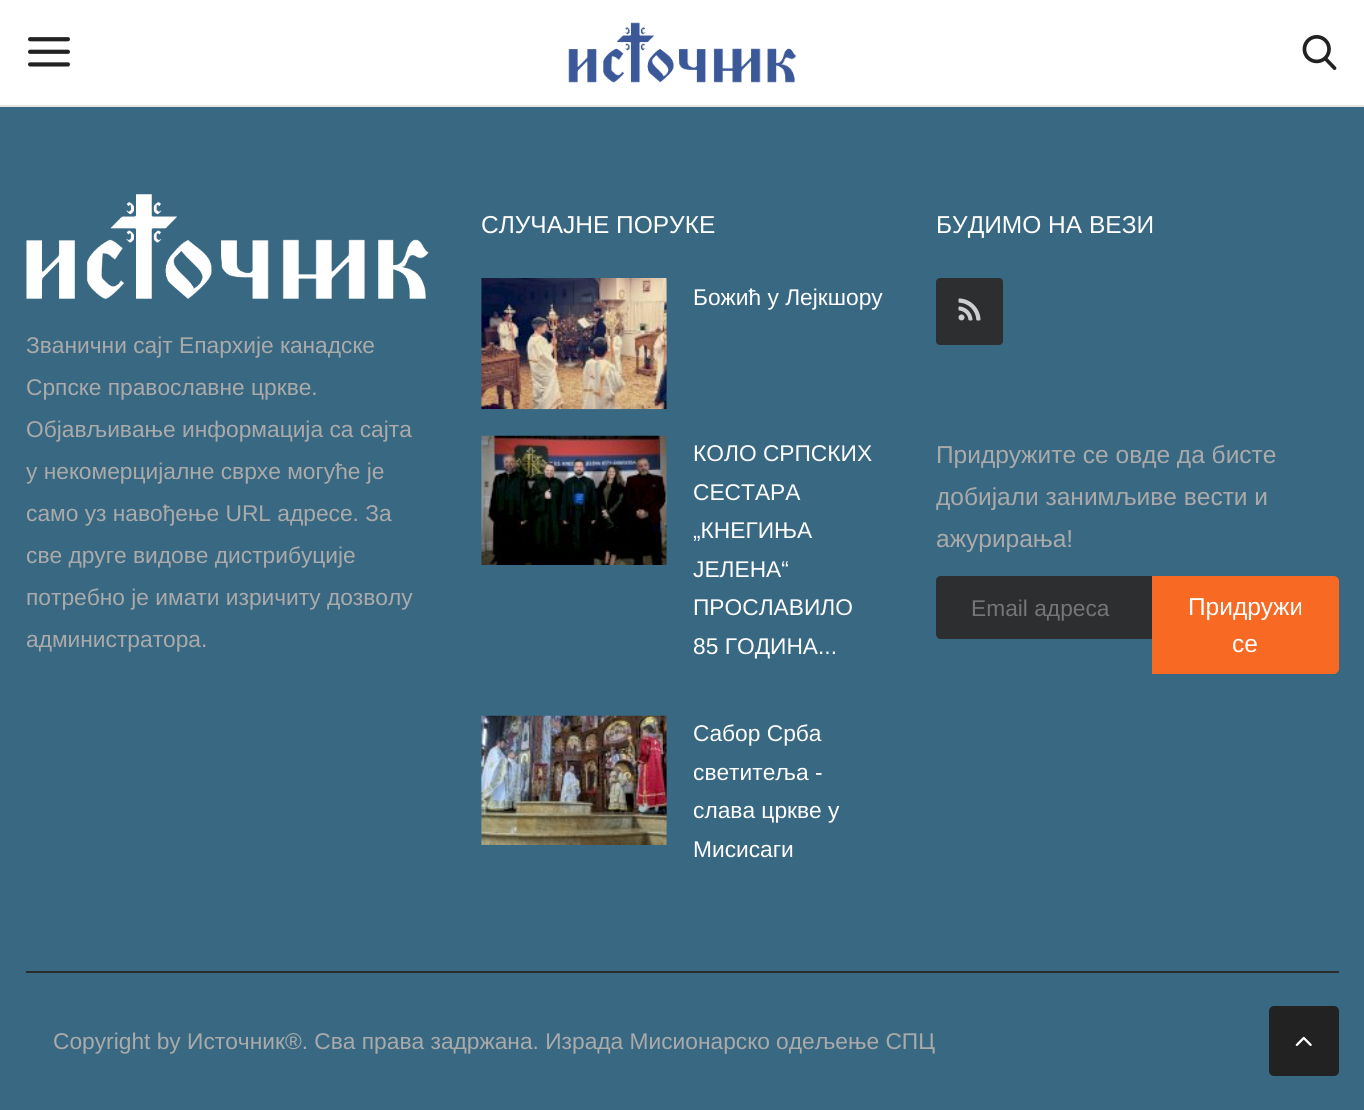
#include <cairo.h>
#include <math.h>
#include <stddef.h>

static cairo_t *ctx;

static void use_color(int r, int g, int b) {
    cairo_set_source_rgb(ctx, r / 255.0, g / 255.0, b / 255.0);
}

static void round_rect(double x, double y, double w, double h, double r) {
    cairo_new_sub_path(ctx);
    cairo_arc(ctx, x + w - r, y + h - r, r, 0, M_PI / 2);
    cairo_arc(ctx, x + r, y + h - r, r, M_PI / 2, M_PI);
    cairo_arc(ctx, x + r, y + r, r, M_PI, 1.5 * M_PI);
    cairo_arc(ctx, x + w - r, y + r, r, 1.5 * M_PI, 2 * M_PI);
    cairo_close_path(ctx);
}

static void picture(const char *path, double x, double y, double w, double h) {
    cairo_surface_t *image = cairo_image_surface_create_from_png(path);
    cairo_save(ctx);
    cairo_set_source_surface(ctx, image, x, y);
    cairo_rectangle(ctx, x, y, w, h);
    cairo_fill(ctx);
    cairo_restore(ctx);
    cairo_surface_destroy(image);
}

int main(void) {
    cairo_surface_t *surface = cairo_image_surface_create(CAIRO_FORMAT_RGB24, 1364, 1110);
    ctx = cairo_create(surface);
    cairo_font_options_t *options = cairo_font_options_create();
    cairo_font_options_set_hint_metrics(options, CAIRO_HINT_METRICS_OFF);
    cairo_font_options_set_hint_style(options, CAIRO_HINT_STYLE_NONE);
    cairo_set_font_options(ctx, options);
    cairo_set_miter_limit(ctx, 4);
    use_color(57, 104, 130);
    cairo_paint(ctx);
    use_color(255, 255, 255);
    cairo_rectangle(ctx, 0, 0, 1364, 105);
    cairo_fill(ctx);
    use_color(230, 230, 230);
    cairo_rectangle(ctx, 0, 105, 1364, 2);
    cairo_fill(ctx);
    picture("img1.png", 28, 37, 42, 30);
    picture("img2.png", 568, 22, 228, 61);
    picture("img3.png", 1302, 35, 35, 35);
    picture("img4.png", 26, 194, 403, 105);
    cairo_select_font_face(ctx, "Liberation Sans", CAIRO_FONT_SLANT_NORMAL, CAIRO_FONT_WEIGHT_NORMAL);
    cairo_set_font_size(ctx, 22.75);
    use_color(170, 170, 170);
    cairo_move_to(ctx, 26, 353);
    cairo_show_text(ctx, "Званични сајт Епархије канадске");
    cairo_move_to(ctx, 26, 395);
    cairo_show_text(ctx, "Српске православне цркве.");
    cairo_move_to(ctx, 26, 437);
    cairo_show_text(ctx, "Објављивање информација са сајта");
    cairo_move_to(ctx, 26, 479);
    cairo_show_text(ctx, "у некомерцијалне сврхе могуће је");
    cairo_move_to(ctx, 26, 521);
    cairo_show_text(ctx, "само уз навођење URL адресе. За");
    cairo_move_to(ctx, 26, 563);
    cairo_show_text(ctx, "све друге видове дистрибуције");
    cairo_move_to(ctx, 26, 605);
    cairo_show_text(ctx, "потребно је имати изричиту дозволу");
    cairo_move_to(ctx, 26, 647);
    cairo_show_text(ctx, "администратора.");
    cairo_set_font_size(ctx, 24.5);
    use_color(255, 255, 255);
    cairo_move_to(ctx, 481, 233);
    cairo_show_text(ctx, "СЛУЧАЈНЕ ПОРУКЕ");
    picture("img5.png", 481, 278, 186, 132);
    cairo_set_font_size(ctx, 22.75);
    cairo_move_to(ctx, 693, 305);
    cairo_show_text(ctx, "Божић у Лејкшору");
    picture("img6.png", 481, 435, 186, 130);
    cairo_move_to(ctx, 693, 461);
    cairo_show_text(ctx, "КОЛО СРПСКИХ");
    cairo_move_to(ctx, 693, 500);
    cairo_show_text(ctx, "СЕСТАРА");
    cairo_move_to(ctx, 693, 538);
    cairo_show_text(ctx, "„КНЕГИЊА");
    cairo_move_to(ctx, 693, 577);
    cairo_show_text(ctx, "ЈЕЛЕНА“");
    cairo_move_to(ctx, 693, 615);
    cairo_show_text(ctx, "ПРОСЛАВИЛО");
    cairo_move_to(ctx, 693, 654);
    cairo_show_text(ctx, "85 ГОДИНА...");
    picture("img7.png", 481, 715, 186, 130);
    cairo_move_to(ctx, 693, 741);
    cairo_show_text(ctx, "Сабор Срба");
    cairo_move_to(ctx, 693, 780);
    cairo_show_text(ctx, "светитеља -");
    cairo_move_to(ctx, 693, 818);
    cairo_show_text(ctx, "слава цркве у");
    cairo_move_to(ctx, 693, 857);
    cairo_show_text(ctx, "Мисисаги");
    cairo_set_font_size(ctx, 24.5);
    cairo_move_to(ctx, 936, 233);
    cairo_show_text(ctx, "БУДИМО НА ВЕЗИ");
    use_color(45, 46, 48);
    round_rect(936, 278, 67, 67, 4);
    cairo_fill(ctx);
    picture("img8.png", 958, 298, 23, 23);
    use_color(170, 170, 170);
    cairo_move_to(ctx, 936, 463);
    cairo_show_text(ctx, "Придружите се овде да бисте");
    cairo_move_to(ctx, 936, 505);
    cairo_show_text(ctx, "добијали занимљиве вести и");
    cairo_move_to(ctx, 936, 547);
    cairo_show_text(ctx, "ажурирања!");
    use_color(45, 46, 48);
    cairo_new_path(ctx);
    cairo_move_to(ctx, 941, 576);
    cairo_line_to(ctx, 1152, 576);
    cairo_line_to(ctx, 1152, 639);
    cairo_line_to(ctx, 941, 639);
    cairo_curve_to(ctx, 938, 639, 936, 637, 936, 634);
    cairo_line_to(ctx, 936, 581);
    cairo_curve_to(ctx, 936, 578, 938, 576, 941, 576);
    cairo_close_path(ctx);
    cairo_fill(ctx);
    cairo_set_font_size(ctx, 22.75);
    use_color(117, 117, 117);
    cairo_move_to(ctx, 971, 616);
    cairo_show_text(ctx, "Email адреса");
    use_color(248, 105, 35);
    cairo_new_path(ctx);
    cairo_move_to(ctx, 1153, 577);
    cairo_line_to(ctx, 1334, 577);
    cairo_curve_to(ctx, 1336, 577, 1338, 579, 1338, 581);
    cairo_line_to(ctx, 1338, 669);
    cairo_curve_to(ctx, 1338, 671, 1336, 673, 1334, 673);
    cairo_line_to(ctx, 1153, 673);
    cairo_close_path(ctx);
    cairo_fill_preserve(ctx);
    cairo_stroke(ctx);
    cairo_set_font_size(ctx, 24.5);
    use_color(255, 255, 255);
    cairo_move_to(ctx, 1188, 615);
    cairo_show_text(ctx, "Придружи");
    cairo_move_to(ctx, 1232, 652);
    cairo_show_text(ctx, "се");
    use_color(42, 43, 45);
    cairo_rectangle(ctx, 26, 971, 1313, 2);
    cairo_fill(ctx);
    cairo_set_font_size(ctx, 22.75);
    use_color(170, 170, 170);
    cairo_move_to(ctx, 53, 1049);
    cairo_show_text(ctx, "Copyright by Источник®. Сва права задржана. Израда Мисионарско одељење СПЦ");
    use_color(34, 34, 34);
    round_rect(1269, 1006, 70, 70, 5);
    cairo_fill(ctx);
    picture("img9.png", 1295, 1036, 17, 10);
    cairo_surface_write_to_png(surface, "result.png");
    cairo_font_options_destroy(options);
    cairo_destroy(ctx);
    cairo_surface_destroy(surface);
    return 0;
}
